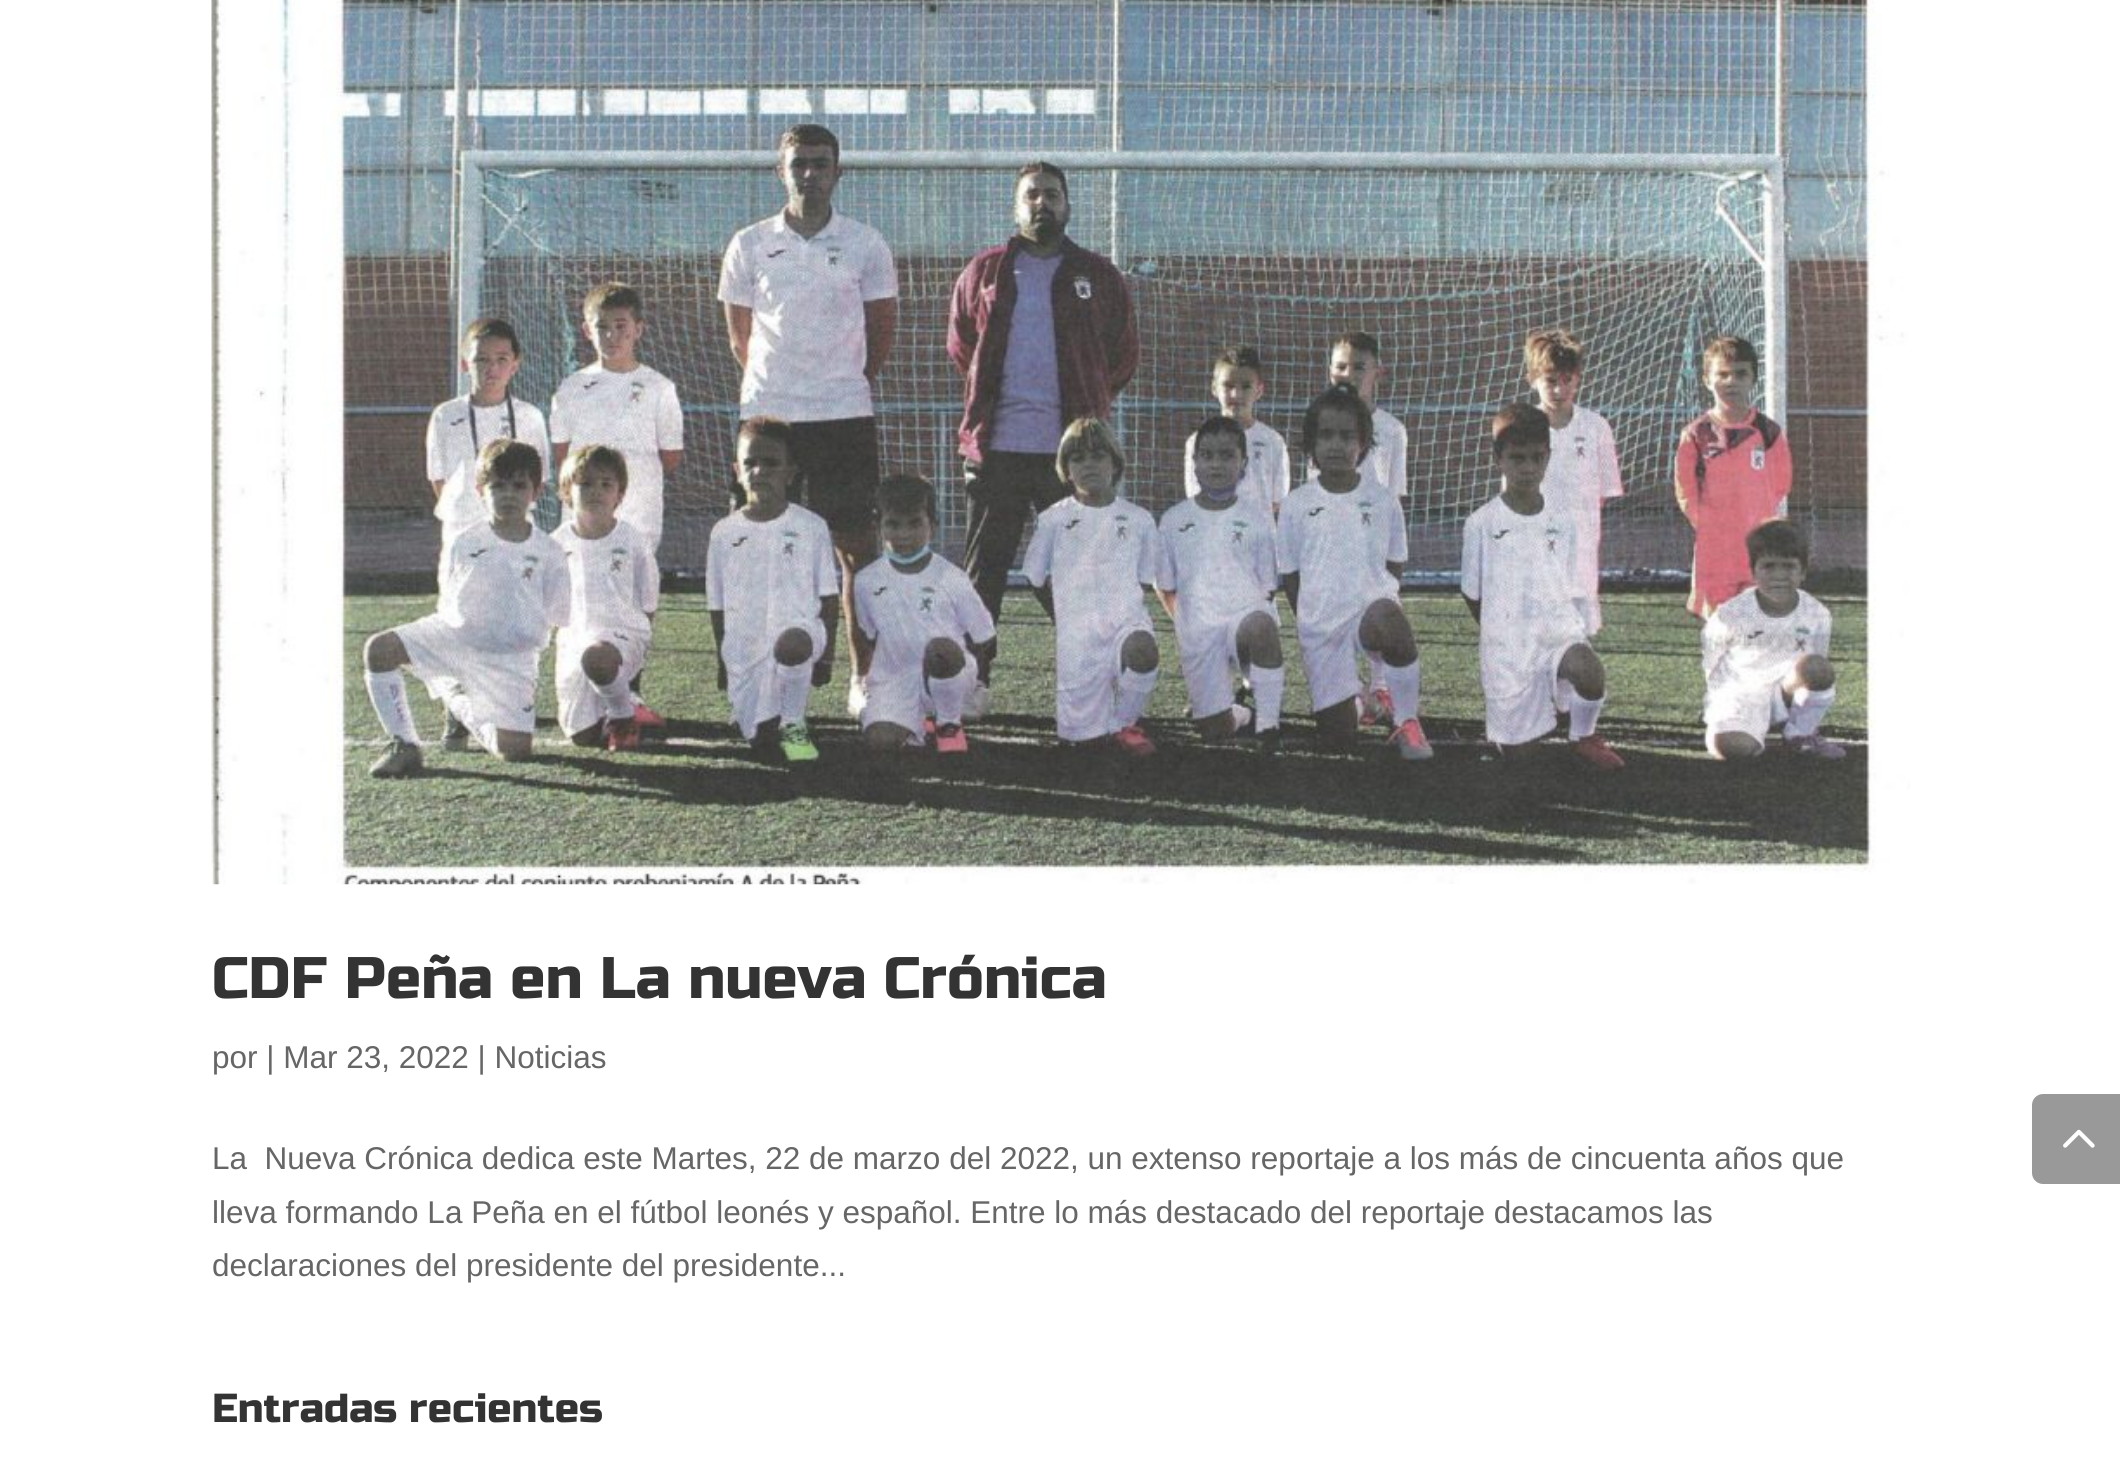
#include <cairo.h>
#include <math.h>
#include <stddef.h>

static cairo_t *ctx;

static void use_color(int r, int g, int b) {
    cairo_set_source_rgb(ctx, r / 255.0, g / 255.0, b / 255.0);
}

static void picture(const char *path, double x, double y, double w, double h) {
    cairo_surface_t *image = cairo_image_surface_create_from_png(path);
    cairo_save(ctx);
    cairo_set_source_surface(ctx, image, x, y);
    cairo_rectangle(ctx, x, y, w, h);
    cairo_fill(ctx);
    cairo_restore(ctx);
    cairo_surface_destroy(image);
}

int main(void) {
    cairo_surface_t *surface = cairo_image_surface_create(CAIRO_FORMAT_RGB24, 2120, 1464);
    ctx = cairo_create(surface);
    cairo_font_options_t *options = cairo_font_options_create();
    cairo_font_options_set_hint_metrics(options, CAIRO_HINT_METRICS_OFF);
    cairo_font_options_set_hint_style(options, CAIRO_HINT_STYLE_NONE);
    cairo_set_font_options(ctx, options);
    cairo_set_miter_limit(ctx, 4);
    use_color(255, 255, 255);
    cairo_paint(ctx);
    picture("img1.png", 211, 0, 1699, 885);
    cairo_select_font_face(ctx, "Russo One", CAIRO_FONT_SLANT_NORMAL, CAIRO_FONT_WEIGHT_NORMAL);
    cairo_set_font_size(ctx, 58.5);
    use_color(51, 51, 51);
    cairo_move_to(ctx, 212, 998);
    cairo_show_text(ctx, "CDF Peña en La nueva Crónica");
    cairo_select_font_face(ctx, "Liberation Sans", CAIRO_FONT_SLANT_NORMAL, CAIRO_FONT_WEIGHT_NORMAL);
    cairo_set_font_size(ctx, 31.5);
    use_color(102, 102, 102);
    cairo_move_to(ctx, 212, 1068);
    cairo_show_text(ctx, "por | Mar 23, 2022 | Noticias");
    cairo_move_to(ctx, 212, 1169);
    cairo_show_text(ctx, "La  Nueva Crónica dedica este Martes, 22 de marzo del 2022, un extenso reportaje a los más de cincuenta años que");
    cairo_move_to(ctx, 212, 1223);
    cairo_show_text(ctx, "lleva formando La Peña en el fútbol leonés y español. Entre lo más destacado del reportaje destacamos las");
    cairo_move_to(ctx, 212, 1276);
    cairo_show_text(ctx, "declaraciones del presidente del presidente...");
    cairo_select_font_face(ctx, "Russo One", CAIRO_FONT_SLANT_NORMAL, CAIRO_FONT_WEIGHT_NORMAL);
    cairo_set_font_size(ctx, 40.5);
    use_color(51, 51, 51);
    cairo_move_to(ctx, 212, 1422);
    cairo_show_text(ctx, "Entradas recientes");
    use_color(153, 153, 153);
    cairo_new_path(ctx);
    cairo_move_to(ctx, 2043, 1094);
    cairo_line_to(ctx, 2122, 1094);
    cairo_line_to(ctx, 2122, 1184);
    cairo_line_to(ctx, 2043, 1184);
    cairo_curve_to(ctx, 2037, 1184, 2032, 1179, 2032, 1173);
    cairo_line_to(ctx, 2032, 1105);
    cairo_curve_to(ctx, 2032, 1099, 2037, 1094, 2043, 1094);
    cairo_close_path(ctx);
    cairo_fill(ctx);
    picture("img2.png", 2063, 1129, 32, 19);
    cairo_surface_write_to_png(surface, "result.png");
    cairo_font_options_destroy(options);
    cairo_destroy(ctx);
    cairo_surface_destroy(surface);
    return 0;
}
